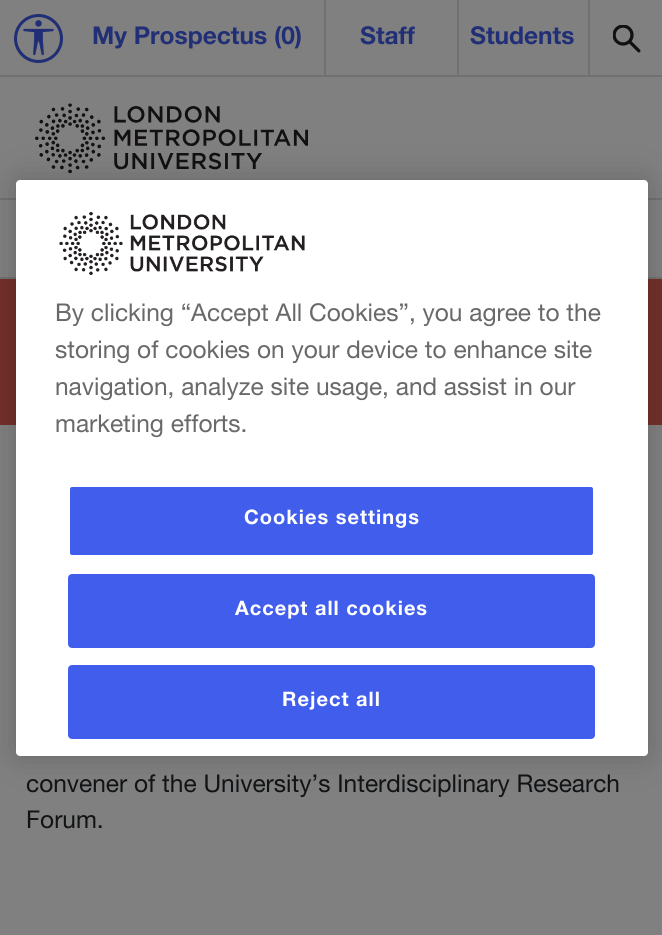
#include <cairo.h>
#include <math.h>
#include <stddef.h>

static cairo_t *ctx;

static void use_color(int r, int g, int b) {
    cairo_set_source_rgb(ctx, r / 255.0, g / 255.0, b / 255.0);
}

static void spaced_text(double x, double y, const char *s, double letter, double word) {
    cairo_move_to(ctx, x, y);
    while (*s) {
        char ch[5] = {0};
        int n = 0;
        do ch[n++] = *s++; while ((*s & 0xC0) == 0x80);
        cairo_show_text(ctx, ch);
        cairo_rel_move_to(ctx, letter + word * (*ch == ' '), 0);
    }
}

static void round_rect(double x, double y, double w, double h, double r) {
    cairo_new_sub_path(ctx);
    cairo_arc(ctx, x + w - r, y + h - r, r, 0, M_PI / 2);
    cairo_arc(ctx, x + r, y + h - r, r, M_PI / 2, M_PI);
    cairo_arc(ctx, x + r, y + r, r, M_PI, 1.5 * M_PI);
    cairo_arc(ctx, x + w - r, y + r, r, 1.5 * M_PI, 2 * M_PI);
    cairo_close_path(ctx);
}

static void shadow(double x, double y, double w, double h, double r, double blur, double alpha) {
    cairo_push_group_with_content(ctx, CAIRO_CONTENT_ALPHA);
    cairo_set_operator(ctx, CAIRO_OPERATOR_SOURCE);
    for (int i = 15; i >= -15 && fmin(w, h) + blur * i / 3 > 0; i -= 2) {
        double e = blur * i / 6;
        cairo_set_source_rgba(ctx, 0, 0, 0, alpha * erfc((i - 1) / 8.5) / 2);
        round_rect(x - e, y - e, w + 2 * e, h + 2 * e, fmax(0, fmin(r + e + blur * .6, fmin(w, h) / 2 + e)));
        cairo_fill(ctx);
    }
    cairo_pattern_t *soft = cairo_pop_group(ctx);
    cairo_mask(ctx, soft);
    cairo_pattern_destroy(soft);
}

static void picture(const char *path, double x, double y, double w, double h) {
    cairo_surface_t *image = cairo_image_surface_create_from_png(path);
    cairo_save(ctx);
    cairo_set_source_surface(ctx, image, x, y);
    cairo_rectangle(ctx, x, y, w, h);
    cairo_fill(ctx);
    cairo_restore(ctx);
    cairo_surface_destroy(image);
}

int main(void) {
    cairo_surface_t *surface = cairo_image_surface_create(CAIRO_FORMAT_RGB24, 662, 935);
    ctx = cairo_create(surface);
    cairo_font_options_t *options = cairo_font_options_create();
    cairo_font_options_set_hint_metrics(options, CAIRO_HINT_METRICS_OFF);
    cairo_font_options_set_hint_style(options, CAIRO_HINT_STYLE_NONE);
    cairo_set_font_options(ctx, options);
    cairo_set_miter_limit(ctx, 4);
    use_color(128, 128, 128);
    cairo_paint(ctx);
    use_color(114, 113, 113);
    cairo_rectangle(ctx, 0, 75, 662, 2);
    cairo_fill(ctx);
    picture("img1.png", 14, 14, 49, 49);
    cairo_select_font_face(ctx, "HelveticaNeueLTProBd", CAIRO_FONT_SLANT_NORMAL, CAIRO_FONT_WEIGHT_BOLD);
    cairo_set_font_size(ctx, 24.5);
    use_color(33, 47, 118);
    cairo_move_to(ctx, 92, 44);
    cairo_show_text(ctx, "My Prospectus (0)");
    use_color(114, 113, 113);
    cairo_rectangle(ctx, 324, 0, 2, 77);
    cairo_fill(ctx);
    use_color(33, 47, 118);
    cairo_move_to(ctx, 360, 44);
    cairo_show_text(ctx, "Staff");
    use_color(114, 113, 113);
    cairo_rectangle(ctx, 457, 0, 2, 77);
    cairo_fill(ctx);
    use_color(33, 47, 118);
    cairo_move_to(ctx, 470, 44);
    cairo_show_text(ctx, "Students");
    picture("img2.png", 613, 25, 28, 28);
    use_color(114, 113, 113);
    cairo_rectangle(ctx, 588, 0, 2, 77);
    cairo_fill(ctx);
    cairo_rectangle(ctx, 0, 277, 662, 2);
    cairo_fill(ctx);
    cairo_rectangle(ctx, 0, 198, 662, 2);
    cairo_fill(ctx);
    picture("img3.png", 35, 103, 273, 70);
    use_color(115, 48, 42);
    cairo_rectangle(ctx, 0, 279, 662, 146);
    cairo_fill(ctx);
    use_color(0, 0, 0);
    shadow(16, 180, 632, 576, 4, 16, 0.2);
    use_color(255, 255, 255);
    round_rect(16, 180, 632, 576, 4);
    cairo_fill(ctx);
    picture("img4.png", 59, 212, 246, 63);
    cairo_select_font_face(ctx, "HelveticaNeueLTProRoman", CAIRO_FONT_SLANT_NORMAL, CAIRO_FONT_WEIGHT_NORMAL);
    use_color(105, 105, 105);
    cairo_move_to(ctx, 55, 321);
    cairo_show_text(ctx, "By clicking “Accept All Cookies”, you agree to the");
    cairo_move_to(ctx, 55, 358);
    cairo_show_text(ctx, "storing of cookies on your device to enhance site");
    cairo_move_to(ctx, 55, 395);
    cairo_show_text(ctx, "navigation, analyze site usage, and assist in our");
    cairo_move_to(ctx, 55, 432);
    cairo_show_text(ctx, "marketing efforts.");
    use_color(65, 93, 236);
    round_rect(69, 486, 525, 70, 3);
    cairo_fill_preserve(ctx);
    use_color(255, 255, 255);
    cairo_stroke(ctx);
    cairo_select_font_face(ctx, "HelveticaNeueLTProBd", CAIRO_FONT_SLANT_NORMAL, CAIRO_FONT_WEIGHT_BOLD);
    cairo_set_font_size(ctx, 20);
    spaced_text(244, 524, "Cookies settings", 1, 0);
    use_color(65, 93, 236);
    round_rect(69, 575, 525, 72, 3);
    cairo_fill_preserve(ctx);
    cairo_stroke(ctx);
    use_color(255, 255, 255);
    spaced_text(235, 615, "Accept all cookies", 1, 0);
    use_color(65, 93, 236);
    round_rect(69, 666, 525, 72, 3);
    cairo_fill_preserve(ctx);
    cairo_stroke(ctx);
    use_color(255, 255, 255);
    spaced_text(282, 706, "Reject all", 1, 0);
    cairo_select_font_face(ctx, "HelveticaNeueLTProRoman", CAIRO_FONT_SLANT_NORMAL, CAIRO_FONT_WEIGHT_NORMAL);
    cairo_set_font_size(ctx, 24.5);
    use_color(17, 19, 21);
    cairo_move_to(ctx, 26, 792);
    cairo_show_text(ctx, "convener of the University’s Interdisciplinary Research");
    cairo_move_to(ctx, 26, 828);
    cairo_show_text(ctx, "Forum.");
    cairo_surface_write_to_png(surface, "result.png");
    cairo_font_options_destroy(options);
    cairo_destroy(ctx);
    cairo_surface_destroy(surface);
    return 0;
}
